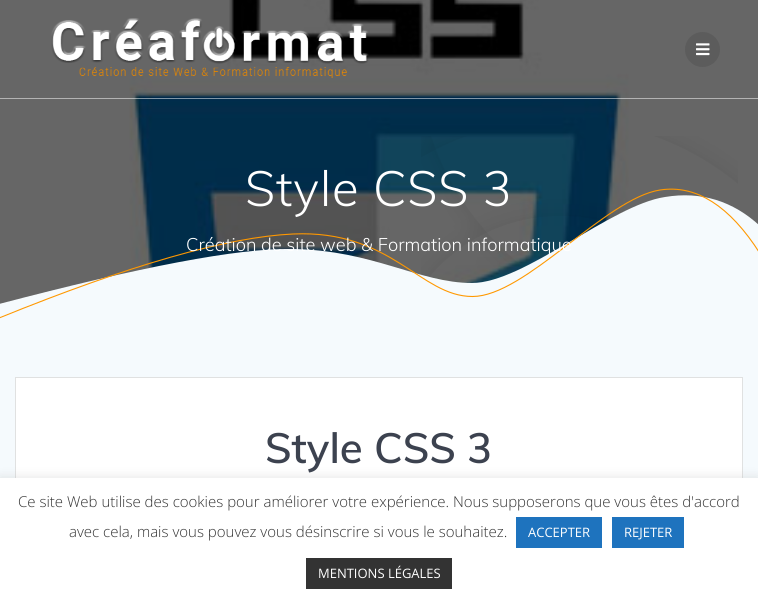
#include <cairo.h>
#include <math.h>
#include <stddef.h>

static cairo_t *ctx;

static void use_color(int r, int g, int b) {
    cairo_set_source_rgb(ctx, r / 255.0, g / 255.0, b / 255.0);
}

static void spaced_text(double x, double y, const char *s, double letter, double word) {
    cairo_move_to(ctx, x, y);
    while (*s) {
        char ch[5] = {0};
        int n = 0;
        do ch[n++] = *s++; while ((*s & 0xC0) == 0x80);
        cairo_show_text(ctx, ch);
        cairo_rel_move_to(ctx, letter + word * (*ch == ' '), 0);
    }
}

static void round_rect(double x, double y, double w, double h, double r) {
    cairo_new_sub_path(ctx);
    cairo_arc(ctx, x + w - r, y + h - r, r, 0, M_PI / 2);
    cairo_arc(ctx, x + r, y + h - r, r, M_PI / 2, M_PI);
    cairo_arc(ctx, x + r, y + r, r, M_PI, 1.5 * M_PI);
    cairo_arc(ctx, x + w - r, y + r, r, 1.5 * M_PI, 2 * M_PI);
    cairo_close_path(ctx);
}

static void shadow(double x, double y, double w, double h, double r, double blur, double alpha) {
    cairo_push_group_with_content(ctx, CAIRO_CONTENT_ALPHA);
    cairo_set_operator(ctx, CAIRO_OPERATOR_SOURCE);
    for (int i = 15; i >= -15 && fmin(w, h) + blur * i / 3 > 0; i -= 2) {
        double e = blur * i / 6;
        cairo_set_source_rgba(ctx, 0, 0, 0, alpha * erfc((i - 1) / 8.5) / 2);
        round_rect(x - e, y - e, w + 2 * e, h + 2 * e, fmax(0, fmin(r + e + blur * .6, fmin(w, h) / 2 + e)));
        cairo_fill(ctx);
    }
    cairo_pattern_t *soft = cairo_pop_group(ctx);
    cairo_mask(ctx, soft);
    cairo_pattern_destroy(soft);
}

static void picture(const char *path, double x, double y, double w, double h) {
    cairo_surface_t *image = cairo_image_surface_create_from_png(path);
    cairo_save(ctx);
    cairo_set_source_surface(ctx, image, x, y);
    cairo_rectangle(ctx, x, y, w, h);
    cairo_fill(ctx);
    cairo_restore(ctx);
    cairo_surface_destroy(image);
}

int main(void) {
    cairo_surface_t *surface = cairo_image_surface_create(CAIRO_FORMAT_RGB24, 758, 606);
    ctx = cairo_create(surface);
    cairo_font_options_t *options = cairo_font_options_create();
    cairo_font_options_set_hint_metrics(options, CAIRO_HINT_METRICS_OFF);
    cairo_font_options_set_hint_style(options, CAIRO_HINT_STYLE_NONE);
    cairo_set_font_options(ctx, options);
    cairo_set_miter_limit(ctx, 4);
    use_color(255, 255, 255);
    cairo_paint(ctx);
    picture("img3.png", 0, 0, 758, 304);
    cairo_set_source_rgba(ctx, 1, 1, 1, 0.5);
    cairo_rectangle(ctx, 0, 98, 758, 1);
    cairo_fill(ctx);
    picture("img1.png", 51, 18, 318, 60);
    use_color(92, 92, 92);
    cairo_arc(ctx, 702.5, 49.5, 17.5, 0, 2 * M_PI);
    cairo_fill(ctx);
    picture("img2.png", 696, 43, 14, 13);
    picture("img4.png", 421, 136, 317, 141);
    use_color(245, 250, 253);
    cairo_new_path(ctx);
    cairo_move_to(ctx, -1, 304);
    cairo_curve_to(ctx, 140, 267, 238, 248, 292, 249);
    cairo_curve_to(ctx, 373, 250, 419, 283, 472, 283);
    cairo_curve_to(ctx, 524, 283, 611, 205, 665, 197);
    cairo_curve_to(ctx, 701, 191, 733, 201, 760, 226);
    cairo_line_to(ctx, 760, 337);
    cairo_line_to(ctx, -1, 339);
    cairo_close_path(ctx);
    cairo_fill(ctx);
    cairo_new_path(ctx);
    cairo_move_to(ctx, -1, 318);
    cairo_curve_to(ctx, 129.5, 265, 227.5, 237, 293, 234);
    cairo_curve_to(ctx, 392, 229.5, 420, 296.5, 472.5, 296.5);
    cairo_curve_to(ctx, 525, 296.5, 605.5, 198.5, 660, 190);
    cairo_curve_to(ctx, 696, 184.5, 729.5, 205.5, 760, 253.5);
    use_color(255, 152, 0);
    cairo_set_line_width(ctx, 1.1);
    cairo_stroke(ctx);
    cairo_select_font_face(ctx, "Muli Light", CAIRO_FONT_SLANT_NORMAL, CAIRO_FONT_WEIGHT_NORMAL);
    cairo_set_font_size(ctx, 49);
    use_color(255, 255, 255);
    spaced_text(245, 206, "Style CSS 3", 0.9, 0);
    cairo_set_font_size(ctx, 18.2);
    cairo_move_to(ctx, 186, 251);
    cairo_show_text(ctx, "Création de site web & Formation informatique");
    use_color(245, 250, 253);
    cairo_rectangle(ctx, 0, 337, 758, 141);
    cairo_fill(ctx);
    use_color(255, 255, 255);
    cairo_rectangle(ctx, 16, 378, 726, 100);
    cairo_fill(ctx);
    cairo_rectangle(ctx, 15.5, 377.5, 727, 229);
    use_color(224, 225, 225);
    cairo_set_line_width(ctx, 1);
    cairo_stroke(ctx);
    cairo_select_font_face(ctx, "Muli SemiBold", CAIRO_FONT_SLANT_NORMAL, CAIRO_FONT_WEIGHT_NORMAL);
    cairo_set_font_size(ctx, 42);
    use_color(60, 66, 79);
    cairo_move_to(ctx, 265, 463);
    cairo_show_text(ctx, "Style CSS 3");
    use_color(172, 171, 171);
    shadow(0, 477, 758, 128, 0, 5, 0.3);
    use_color(255, 255, 255);
    cairo_rectangle(ctx, 0, 478, 758, 128);
    cairo_fill(ctx);
    cairo_select_font_face(ctx, "Open Sans Light", CAIRO_FONT_SLANT_NORMAL, CAIRO_FONT_WEIGHT_NORMAL);
    cairo_set_font_size(ctx, 15);
    use_color(51, 51, 51);
    cairo_move_to(ctx, 18, 507);
    cairo_show_text(ctx, "Ce site Web utilise des cookies pour améliorer votre expérience. Nous supposerons que vous êtes d'accord");
    cairo_move_to(ctx, 69, 537);
    cairo_show_text(ctx, "avec cela, mais vous pouvez vous désinscrire si vous le souhaitez.");
    use_color(30, 115, 190);
    cairo_rectangle(ctx, 516, 517, 86, 31);
    cairo_fill(ctx);
    cairo_select_font_face(ctx, "Open Sans", CAIRO_FONT_SLANT_NORMAL, CAIRO_FONT_WEIGHT_NORMAL);
    cairo_set_font_size(ctx, 13);
    use_color(255, 255, 255);
    cairo_move_to(ctx, 528, 537);
    cairo_show_text(ctx, "ACCEPTER");
    use_color(30, 115, 190);
    cairo_rectangle(ctx, 612, 517, 72, 31);
    cairo_fill(ctx);
    use_color(255, 255, 255);
    cairo_move_to(ctx, 624, 537);
    cairo_show_text(ctx, "REJETER");
    use_color(51, 51, 51);
    cairo_rectangle(ctx, 306, 558, 146, 31);
    cairo_fill(ctx);
    use_color(255, 255, 255);
    cairo_move_to(ctx, 318, 578);
    cairo_show_text(ctx, "MENTIONS LÉGALES");
    cairo_surface_write_to_png(surface, "result.png");
    cairo_font_options_destroy(options);
    cairo_destroy(ctx);
    cairo_surface_destroy(surface);
    return 0;
}
